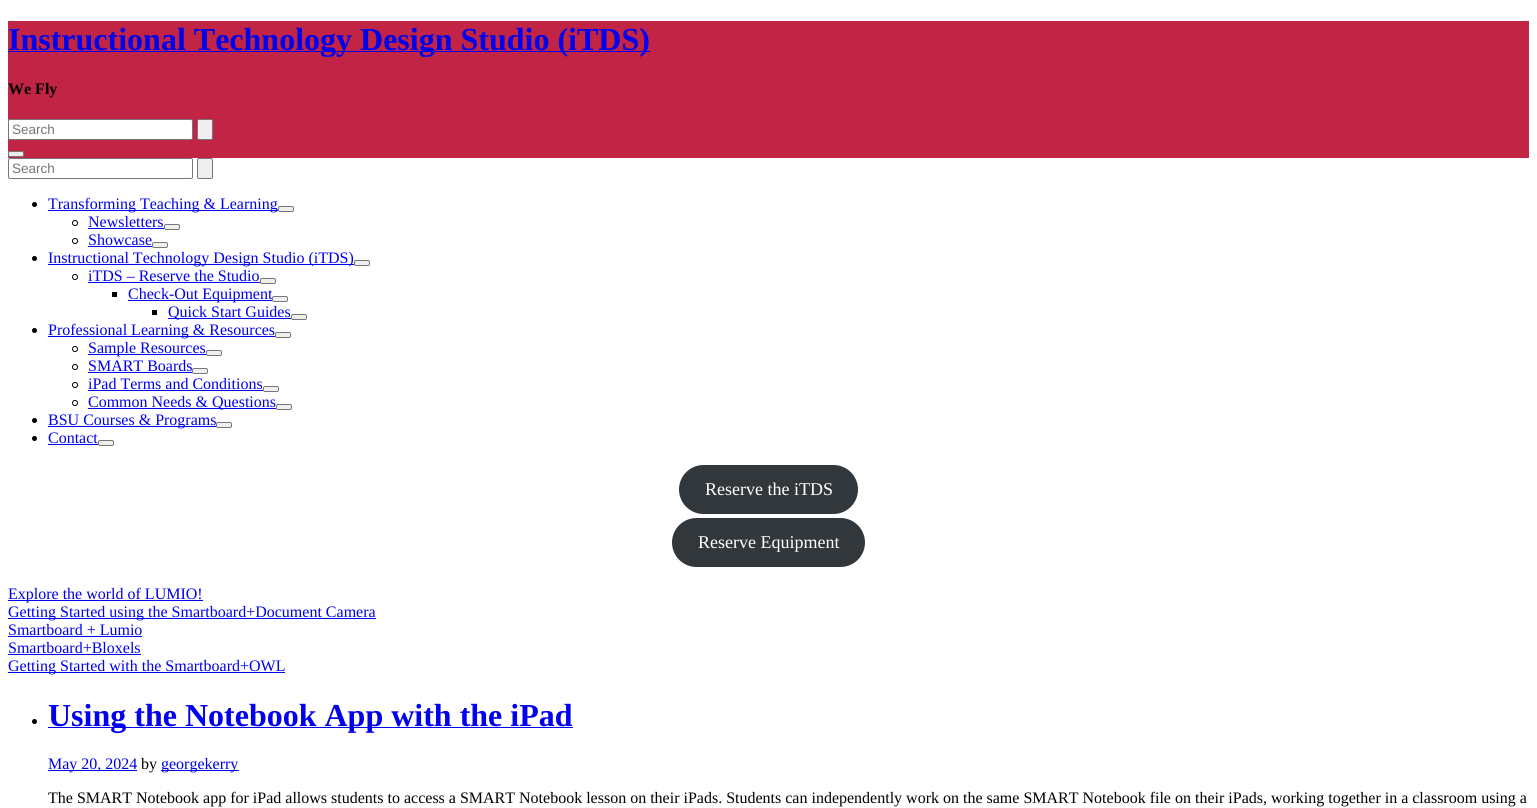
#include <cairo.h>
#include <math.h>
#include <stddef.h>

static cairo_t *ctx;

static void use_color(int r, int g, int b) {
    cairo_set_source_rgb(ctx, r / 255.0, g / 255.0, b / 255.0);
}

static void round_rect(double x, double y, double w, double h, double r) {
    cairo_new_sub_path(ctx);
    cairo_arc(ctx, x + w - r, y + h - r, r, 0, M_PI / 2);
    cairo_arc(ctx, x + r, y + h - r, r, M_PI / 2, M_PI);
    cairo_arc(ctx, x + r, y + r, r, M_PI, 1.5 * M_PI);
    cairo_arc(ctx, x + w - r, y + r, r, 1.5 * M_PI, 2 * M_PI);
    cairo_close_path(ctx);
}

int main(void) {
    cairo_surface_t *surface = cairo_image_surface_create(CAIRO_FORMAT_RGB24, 1537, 808);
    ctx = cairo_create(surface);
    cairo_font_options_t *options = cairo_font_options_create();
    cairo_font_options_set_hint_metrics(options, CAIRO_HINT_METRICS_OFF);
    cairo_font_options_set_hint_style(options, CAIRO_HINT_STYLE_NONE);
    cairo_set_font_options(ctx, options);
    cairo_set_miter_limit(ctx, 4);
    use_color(255, 255, 255);
    cairo_paint(ctx);
    use_color(193, 36, 68);
    cairo_rectangle(ctx, 8, 21, 1521, 137);
    cairo_fill(ctx);
    use_color(0, 0, 238);
    cairo_rectangle(ctx, 8, 51, 642, 1);
    cairo_fill(ctx);
    cairo_select_font_face(ctx, "Liberation Serif", CAIRO_FONT_SLANT_NORMAL, CAIRO_FONT_WEIGHT_BOLD);
    cairo_set_font_size(ctx, 32);
    cairo_move_to(ctx, 8, 50);
    cairo_show_text(ctx, "Instructional Technology Design Studio (iTDS)");
    cairo_set_font_size(ctx, 16);
    use_color(0, 0, 0);
    cairo_move_to(ctx, 8, 94);
    cairo_show_text(ctx, "We Fly");
    use_color(255, 255, 255);
    round_rect(8.5, 119.5, 184, 20, 1.5);
    cairo_fill_preserve(ctx);
    use_color(118, 118, 118);
    cairo_set_line_width(ctx, 1);
    cairo_stroke(ctx);
    cairo_select_font_face(ctx, "Liberation Sans", CAIRO_FONT_SLANT_NORMAL, CAIRO_FONT_WEIGHT_NORMAL);
    cairo_set_font_size(ctx, 13.5);
    use_color(117, 117, 117);
    cairo_move_to(ctx, 12, 134);
    cairo_show_text(ctx, "Search");
    use_color(239, 239, 239);
    round_rect(197.5, 119.5, 15, 20, 1.5);
    cairo_fill_preserve(ctx);
    use_color(118, 118, 118);
    cairo_stroke(ctx);
    use_color(239, 239, 239);
    round_rect(8.5, 151.5, 15, 5, 1.5);
    cairo_fill_preserve(ctx);
    use_color(118, 118, 118);
    cairo_stroke(ctx);
    round_rect(8.5, 158.5, 184, 20, 1.5);
    cairo_stroke(ctx);
    use_color(117, 117, 117);
    cairo_move_to(ctx, 12, 173);
    cairo_show_text(ctx, "Search");
    use_color(239, 239, 239);
    round_rect(197.5, 158.5, 15, 20, 1.5);
    cairo_fill_preserve(ctx);
    use_color(118, 118, 118);
    cairo_stroke(ctx);
    use_color(0, 0, 0);
    cairo_arc(ctx, 34.5, 204.5, 2.5, 0, 2 * M_PI);
    cairo_fill(ctx);
    use_color(0, 0, 238);
    cairo_rectangle(ctx, 48, 210, 230, 1);
    cairo_fill(ctx);
    cairo_select_font_face(ctx, "Liberation Serif", CAIRO_FONT_SLANT_NORMAL, CAIRO_FONT_WEIGHT_NORMAL);
    cairo_set_font_size(ctx, 16);
    cairo_move_to(ctx, 48, 209);
    cairo_show_text(ctx, "Transforming Teaching & Learning");
    use_color(239, 239, 239);
    round_rect(278.5, 206.5, 15, 5, 1.5);
    cairo_fill_preserve(ctx);
    use_color(118, 118, 118);
    cairo_stroke(ctx);
    cairo_arc(ctx, 75, 223, 2.5, 0, 2 * M_PI);
    use_color(0, 0, 0);
    cairo_stroke(ctx);
    use_color(0, 0, 238);
    cairo_move_to(ctx, 88, 227);
    cairo_show_text(ctx, "Newsletters");
    cairo_rectangle(ctx, 88, 228, 76, 1);
    cairo_fill(ctx);
    use_color(239, 239, 239);
    round_rect(164.5, 224.5, 15, 5, 1.5);
    cairo_fill_preserve(ctx);
    use_color(118, 118, 118);
    cairo_stroke(ctx);
    cairo_arc(ctx, 75, 241, 2.5, 0, 2 * M_PI);
    use_color(0, 0, 0);
    cairo_stroke(ctx);
    use_color(0, 0, 238);
    cairo_move_to(ctx, 88, 245);
    cairo_show_text(ctx, "Showcase");
    cairo_rectangle(ctx, 88, 246, 64, 1);
    cairo_fill(ctx);
    use_color(239, 239, 239);
    round_rect(152.5, 242.5, 15, 5, 1.5);
    cairo_fill_preserve(ctx);
    use_color(118, 118, 118);
    cairo_stroke(ctx);
    use_color(0, 0, 0);
    cairo_arc(ctx, 34.5, 258.5, 2.5, 0, 2 * M_PI);
    cairo_fill(ctx);
    use_color(0, 0, 238);
    cairo_rectangle(ctx, 48, 264, 306, 1);
    cairo_fill(ctx);
    cairo_move_to(ctx, 48, 263);
    cairo_show_text(ctx, "Instructional Technology Design Studio (iTDS)");
    use_color(239, 239, 239);
    round_rect(354.5, 260.5, 15, 5, 1.5);
    cairo_fill_preserve(ctx);
    use_color(118, 118, 118);
    cairo_stroke(ctx);
    cairo_arc(ctx, 75, 277, 2.5, 0, 2 * M_PI);
    use_color(0, 0, 0);
    cairo_stroke(ctx);
    use_color(0, 0, 238);
    cairo_move_to(ctx, 88, 281);
    cairo_show_text(ctx, "iTDS – Reserve the Studio");
    cairo_rectangle(ctx, 88, 282, 172, 1);
    cairo_fill(ctx);
    use_color(239, 239, 239);
    round_rect(260.5, 278.5, 15, 5, 1.5);
    cairo_fill_preserve(ctx);
    use_color(118, 118, 118);
    cairo_stroke(ctx);
    use_color(0, 0, 0);
    cairo_rectangle(ctx, 112, 292, 5, 5);
    cairo_fill(ctx);
    use_color(0, 0, 238);
    cairo_rectangle(ctx, 128, 300, 144, 1);
    cairo_fill(ctx);
    cairo_move_to(ctx, 128, 299);
    cairo_show_text(ctx, "Check-Out Equipment");
    use_color(239, 239, 239);
    round_rect(272.5, 296.5, 15, 5, 1.5);
    cairo_fill_preserve(ctx);
    use_color(118, 118, 118);
    cairo_stroke(ctx);
    use_color(0, 0, 0);
    cairo_rectangle(ctx, 152, 310, 5, 5);
    cairo_fill(ctx);
    use_color(0, 0, 238);
    cairo_rectangle(ctx, 168, 318, 123, 1);
    cairo_fill(ctx);
    cairo_move_to(ctx, 168, 317);
    cairo_show_text(ctx, "Quick Start Guides");
    use_color(239, 239, 239);
    round_rect(291.5, 314.5, 15, 5, 1.5);
    cairo_fill_preserve(ctx);
    use_color(118, 118, 118);
    cairo_stroke(ctx);
    use_color(0, 0, 0);
    cairo_arc(ctx, 34.5, 330.5, 2.5, 0, 2 * M_PI);
    cairo_fill(ctx);
    use_color(0, 0, 238);
    cairo_rectangle(ctx, 48, 336, 227, 1);
    cairo_fill(ctx);
    cairo_move_to(ctx, 48, 335);
    cairo_show_text(ctx, "Professional Learning & Resources");
    use_color(239, 239, 239);
    round_rect(275.5, 332.5, 15, 5, 1.5);
    cairo_fill_preserve(ctx);
    use_color(118, 118, 118);
    cairo_stroke(ctx);
    cairo_arc(ctx, 75, 349, 2.5, 0, 2 * M_PI);
    use_color(0, 0, 0);
    cairo_stroke(ctx);
    use_color(0, 0, 238);
    cairo_rectangle(ctx, 88, 354, 118, 1);
    cairo_fill(ctx);
    cairo_move_to(ctx, 88, 353);
    cairo_show_text(ctx, "Sample Resources");
    use_color(239, 239, 239);
    round_rect(206.5, 350.5, 15, 5, 1.5);
    cairo_fill_preserve(ctx);
    use_color(118, 118, 118);
    cairo_stroke(ctx);
    cairo_arc(ctx, 75, 367, 2.5, 0, 2 * M_PI);
    use_color(0, 0, 0);
    cairo_stroke(ctx);
    use_color(0, 0, 238);
    cairo_move_to(ctx, 88, 371);
    cairo_show_text(ctx, "SMART Boards");
    cairo_rectangle(ctx, 88, 372, 104, 1);
    cairo_fill(ctx);
    use_color(239, 239, 239);
    round_rect(192.5, 368.5, 15, 5, 1.5);
    cairo_fill_preserve(ctx);
    use_color(118, 118, 118);
    cairo_stroke(ctx);
    cairo_arc(ctx, 75, 385, 2.5, 0, 2 * M_PI);
    use_color(0, 0, 0);
    cairo_stroke(ctx);
    use_color(0, 0, 238);
    cairo_move_to(ctx, 88, 389);
    cairo_show_text(ctx, "iPad Terms and Conditions");
    cairo_rectangle(ctx, 88, 390, 175, 1);
    cairo_fill(ctx);
    use_color(239, 239, 239);
    round_rect(263.5, 386.5, 15, 5, 1.5);
    cairo_fill_preserve(ctx);
    use_color(118, 118, 118);
    cairo_stroke(ctx);
    cairo_arc(ctx, 75, 403, 2.5, 0, 2 * M_PI);
    use_color(0, 0, 0);
    cairo_stroke(ctx);
    use_color(0, 0, 238);
    cairo_rectangle(ctx, 88, 408, 188, 1);
    cairo_fill(ctx);
    cairo_move_to(ctx, 88, 407);
    cairo_show_text(ctx, "Common Needs & Questions");
    use_color(239, 239, 239);
    round_rect(276.5, 404.5, 15, 5, 1.5);
    cairo_fill_preserve(ctx);
    use_color(118, 118, 118);
    cairo_stroke(ctx);
    use_color(0, 0, 0);
    cairo_arc(ctx, 34.5, 420.5, 2.5, 0, 2 * M_PI);
    cairo_fill(ctx);
    use_color(0, 0, 238);
    cairo_rectangle(ctx, 48, 426, 168, 1);
    cairo_fill(ctx);
    cairo_move_to(ctx, 48, 425);
    cairo_show_text(ctx, "BSU Courses & Programs");
    use_color(239, 239, 239);
    round_rect(216.5, 422.5, 15, 5, 1.5);
    cairo_fill_preserve(ctx);
    use_color(118, 118, 118);
    cairo_stroke(ctx);
    use_color(0, 0, 0);
    cairo_arc(ctx, 34.5, 438.5, 2.5, 0, 2 * M_PI);
    cairo_fill(ctx);
    use_color(0, 0, 238);
    cairo_move_to(ctx, 48, 443);
    cairo_show_text(ctx, "Contact");
    cairo_rectangle(ctx, 48, 444, 50, 1);
    cairo_fill(ctx);
    use_color(239, 239, 239);
    round_rect(98.5, 440.5, 15, 5, 1.5);
    cairo_fill_preserve(ctx);
    use_color(118, 118, 118);
    cairo_stroke(ctx);
    use_color(50, 55, 60);
    round_rect(678, 464, 181, 51, 25.5);
    cairo_fill_preserve(ctx);
    use_color(255, 255, 255);
    cairo_set_line_width(ctx, 2);
    cairo_stroke(ctx);
    cairo_set_font_size(ctx, 18);
    cairo_move_to(ctx, 705, 495);
    cairo_show_text(ctx, "Reserve the iTDS");
    use_color(50, 55, 60);
    round_rect(671, 517, 195, 51, 25.5);
    cairo_fill_preserve(ctx);
    use_color(255, 255, 255);
    cairo_stroke(ctx);
    cairo_move_to(ctx, 698, 548);
    cairo_show_text(ctx, "Reserve Equipment");
    use_color(0, 0, 238);
    cairo_rectangle(ctx, 8, 600, 195, 1);
    cairo_fill(ctx);
    cairo_set_font_size(ctx, 16);
    cairo_move_to(ctx, 8, 599);
    cairo_show_text(ctx, "Explore the world of LUMIO!");
    cairo_rectangle(ctx, 8, 618, 368, 1);
    cairo_fill(ctx);
    cairo_move_to(ctx, 8, 617);
    cairo_show_text(ctx, "Getting Started using the Smartboard+Document Camera");
    cairo_move_to(ctx, 8, 635);
    cairo_show_text(ctx, "Smartboard + Lumio");
    cairo_rectangle(ctx, 8, 636, 134, 1);
    cairo_fill(ctx);
    cairo_move_to(ctx, 8, 653);
    cairo_show_text(ctx, "Smartboard+Bloxels");
    cairo_rectangle(ctx, 8, 654, 133, 1);
    cairo_fill(ctx);
    cairo_rectangle(ctx, 8, 672, 277, 1);
    cairo_fill(ctx);
    cairo_move_to(ctx, 8, 671);
    cairo_show_text(ctx, "Getting Started with the Smartboard+OWL");
    use_color(0, 0, 0);
    cairo_new_path(ctx);
    cairo_arc(ctx, 34.5, 721.5, 2.5, 0, 2 * M_PI);
    cairo_fill(ctx);
    use_color(0, 0, 238);
    cairo_rectangle(ctx, 48, 727, 525, 1);
    cairo_fill(ctx);
    cairo_select_font_face(ctx, "Liberation Serif", CAIRO_FONT_SLANT_NORMAL, CAIRO_FONT_WEIGHT_BOLD);
    cairo_set_font_size(ctx, 32);
    cairo_move_to(ctx, 48, 726);
    cairo_show_text(ctx, "Using the Notebook App with the iPad");
    cairo_rectangle(ctx, 48, 770, 89, 1);
    cairo_fill(ctx);
    cairo_select_font_face(ctx, "Liberation Serif", CAIRO_FONT_SLANT_NORMAL, CAIRO_FONT_WEIGHT_NORMAL);
    cairo_set_font_size(ctx, 16);
    cairo_move_to(ctx, 48, 769);
    cairo_show_text(ctx, "May 20, 2024");
    use_color(0, 0, 0);
    cairo_move_to(ctx, 141, 769);
    cairo_show_text(ctx, "by");
    use_color(0, 0, 238);
    cairo_rectangle(ctx, 161, 770, 78, 1);
    cairo_fill(ctx);
    cairo_move_to(ctx, 161, 769);
    cairo_show_text(ctx, "georgekerry");
    use_color(0, 0, 0);
    cairo_move_to(ctx, 48, 803);
    cairo_show_text(ctx, "The SMART Notebook app for iPad allows students to access a SMART Notebook lesson on their iPads. Students can independently work on the same SMART Notebook file on their iPads, working together in a classroom using a");
    cairo_surface_write_to_png(surface, "result.png");
    cairo_font_options_destroy(options);
    cairo_destroy(ctx);
    cairo_surface_destroy(surface);
    return 0;
}
